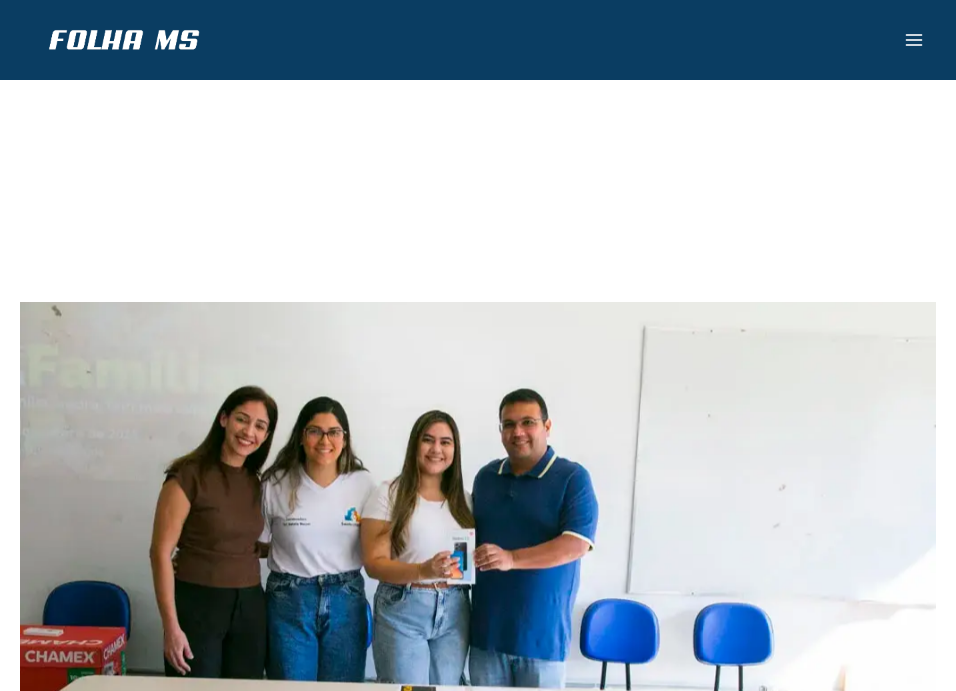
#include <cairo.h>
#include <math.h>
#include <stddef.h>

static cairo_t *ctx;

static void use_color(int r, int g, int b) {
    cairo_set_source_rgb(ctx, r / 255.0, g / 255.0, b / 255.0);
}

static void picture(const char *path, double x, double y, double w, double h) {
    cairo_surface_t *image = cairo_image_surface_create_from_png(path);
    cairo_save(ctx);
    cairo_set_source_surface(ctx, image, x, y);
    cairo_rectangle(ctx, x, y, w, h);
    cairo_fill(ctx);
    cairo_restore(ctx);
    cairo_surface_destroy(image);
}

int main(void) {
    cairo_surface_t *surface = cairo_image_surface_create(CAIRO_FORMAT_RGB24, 956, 691);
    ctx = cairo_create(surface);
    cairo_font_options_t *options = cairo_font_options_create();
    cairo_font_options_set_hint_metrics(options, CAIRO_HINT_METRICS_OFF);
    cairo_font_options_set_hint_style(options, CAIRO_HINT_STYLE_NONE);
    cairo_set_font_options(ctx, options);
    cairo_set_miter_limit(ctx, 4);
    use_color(255, 255, 255);
    cairo_paint(ctx);
    use_color(10, 61, 98);
    cairo_rectangle(ctx, 0, 0, 956, 80);
    cairo_fill(ctx);
    picture("img1.png", 48, 29, 152, 21);
    picture("img2.png", 905, 34, 18, 12);
    picture("img3.png", 20, 302, 916, 389);
    cairo_surface_write_to_png(surface, "result.png");
    cairo_font_options_destroy(options);
    cairo_destroy(ctx);
    cairo_surface_destroy(surface);
    return 0;
}
